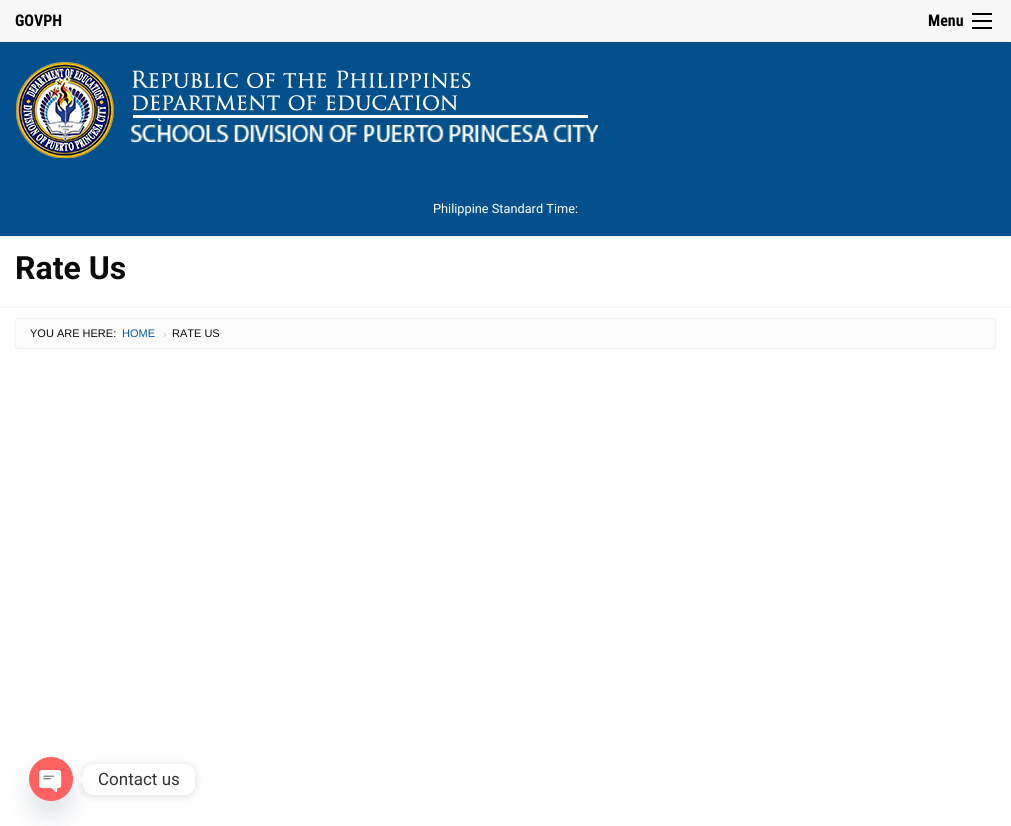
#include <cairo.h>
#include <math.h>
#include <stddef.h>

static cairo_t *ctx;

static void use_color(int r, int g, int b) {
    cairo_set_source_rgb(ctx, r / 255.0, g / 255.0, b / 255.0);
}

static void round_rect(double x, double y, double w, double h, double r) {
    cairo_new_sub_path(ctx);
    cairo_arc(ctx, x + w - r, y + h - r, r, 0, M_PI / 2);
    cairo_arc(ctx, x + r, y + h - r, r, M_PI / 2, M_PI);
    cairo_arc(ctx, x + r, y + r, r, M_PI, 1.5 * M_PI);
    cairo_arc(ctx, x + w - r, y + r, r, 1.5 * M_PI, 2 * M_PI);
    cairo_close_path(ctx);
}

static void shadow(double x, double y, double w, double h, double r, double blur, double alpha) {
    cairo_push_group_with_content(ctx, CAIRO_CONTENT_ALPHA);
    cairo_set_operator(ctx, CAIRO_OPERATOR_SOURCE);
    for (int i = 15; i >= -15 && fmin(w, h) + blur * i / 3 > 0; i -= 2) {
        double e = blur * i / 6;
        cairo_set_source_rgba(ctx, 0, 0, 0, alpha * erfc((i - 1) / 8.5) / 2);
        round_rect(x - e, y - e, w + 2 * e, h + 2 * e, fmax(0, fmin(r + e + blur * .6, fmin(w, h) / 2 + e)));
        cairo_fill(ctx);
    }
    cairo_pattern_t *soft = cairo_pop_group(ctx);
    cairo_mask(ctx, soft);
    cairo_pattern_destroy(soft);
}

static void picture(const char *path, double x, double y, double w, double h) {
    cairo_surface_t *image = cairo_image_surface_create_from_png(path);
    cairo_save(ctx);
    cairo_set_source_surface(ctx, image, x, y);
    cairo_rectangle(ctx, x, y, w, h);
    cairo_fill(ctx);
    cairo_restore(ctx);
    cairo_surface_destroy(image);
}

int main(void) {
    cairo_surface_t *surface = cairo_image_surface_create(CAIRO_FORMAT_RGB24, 1011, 826);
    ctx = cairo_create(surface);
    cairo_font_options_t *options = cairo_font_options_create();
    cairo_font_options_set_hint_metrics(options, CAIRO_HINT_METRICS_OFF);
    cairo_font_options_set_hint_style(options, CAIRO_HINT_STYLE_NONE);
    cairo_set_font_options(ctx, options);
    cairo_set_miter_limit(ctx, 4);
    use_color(255, 255, 255);
    cairo_paint(ctx);
    use_color(0, 0, 0);
    shadow(-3, 0, 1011, 41, 0, 2, 0.2);
    use_color(247, 247, 247);
    cairo_rectangle(ctx, 0, 0, 1011, 41);
    cairo_fill(ctx);
    cairo_select_font_face(ctx, "Roboto Condensed", CAIRO_FONT_SLANT_NORMAL, CAIRO_FONT_WEIGHT_BOLD);
    cairo_set_font_size(ctx, 16);
    use_color(0, 0, 0);
    cairo_move_to(ctx, 15, 26);
    cairo_show_text(ctx, "GOVPH");
    cairo_move_to(ctx, 928, 26);
    cairo_show_text(ctx, "Menu");
    cairo_rectangle(ctx, 972, 27, 20, 2);
    cairo_fill(ctx);
    cairo_rectangle(ctx, 972, 20, 20, 2);
    cairo_fill(ctx);
    cairo_rectangle(ctx, 972, 13, 20, 2);
    cairo_fill(ctx);
    use_color(4, 80, 140);
    cairo_rectangle(ctx, 0, 42, 1011, 194);
    cairo_fill(ctx);
    use_color(242, 242, 242);
    cairo_rectangle(ctx, 0, 236, 1011, 1);
    cairo_fill(ctx);
    picture("img1.png", 16, 62, 582, 96);
    cairo_select_font_face(ctx, "Roboto", CAIRO_FONT_SLANT_NORMAL, CAIRO_FONT_WEIGHT_NORMAL);
    cairo_set_font_size(ctx, 12.75);
    use_color(255, 255, 255);
    cairo_move_to(ctx, 433, 213);
    cairo_show_text(ctx, "Philippine Standard Time:");
    use_color(242, 242, 242);
    cairo_rectangle(ctx, 0, 307, 1011, 1);
    cairo_fill(ctx);
    cairo_select_font_face(ctx, "Roboto", CAIRO_FONT_SLANT_NORMAL, CAIRO_FONT_WEIGHT_BOLD);
    cairo_set_font_size(ctx, 32);
    use_color(10, 10, 10);
    cairo_move_to(ctx, 15, 279);
    cairo_show_text(ctx, "Rate Us");
    use_color(252, 252, 252);
    round_rect(15.5, 318.5, 980, 30, 2.5);
    cairo_fill_preserve(ctx);
    use_color(242, 242, 242);
    cairo_set_line_width(ctx, 1);
    cairo_stroke(ctx);
    cairo_select_font_face(ctx, "Liberation Sans", CAIRO_FONT_SLANT_NORMAL, CAIRO_FONT_WEIGHT_NORMAL);
    cairo_set_font_size(ctx, 11);
    use_color(10, 10, 10);
    cairo_move_to(ctx, 30, 337);
    cairo_show_text(ctx, "YOU ARE HERE:");
    use_color(7, 88, 176);
    cairo_move_to(ctx, 122, 337);
    cairo_show_text(ctx, "HOME");
    use_color(202, 202, 202);
    cairo_move_to(ctx, 163, 338);
    cairo_show_text(ctx, "›");
    use_color(10, 10, 10);
    cairo_move_to(ctx, 172, 337);
    cairo_show_text(ctx, "RATE US");
    use_color(0, 0, 0);
    shadow(83, 765, 112, 31, 10, 4, 0.15);
    use_color(255, 255, 255);
    round_rect(83, 764, 112, 31, 10);
    cairo_fill(ctx);
    cairo_new_path(ctx);
    cairo_move_to(ctx, 83, 774.5);
    cairo_line_to(ctx, 83, 784.5);
    cairo_line_to(ctx, 78, 779.5);
    cairo_close_path(ctx);
    cairo_fill(ctx);
    use_color(73, 104, 126);
    shadow(29, 773, 44, 44, 22, 12, 0.16);
    picture("img2.png", 29, 757, 44, 44);
    cairo_select_font_face(ctx, "Roboto", CAIRO_FONT_SLANT_NORMAL, CAIRO_FONT_WEIGHT_NORMAL);
    cairo_set_font_size(ctx, 17);
    use_color(51, 51, 51);
    cairo_move_to(ctx, 98, 785);
    cairo_show_text(ctx, "Contact us");
    cairo_surface_write_to_png(surface, "result.png");
    cairo_font_options_destroy(options);
    cairo_destroy(ctx);
    cairo_surface_destroy(surface);
    return 0;
}
